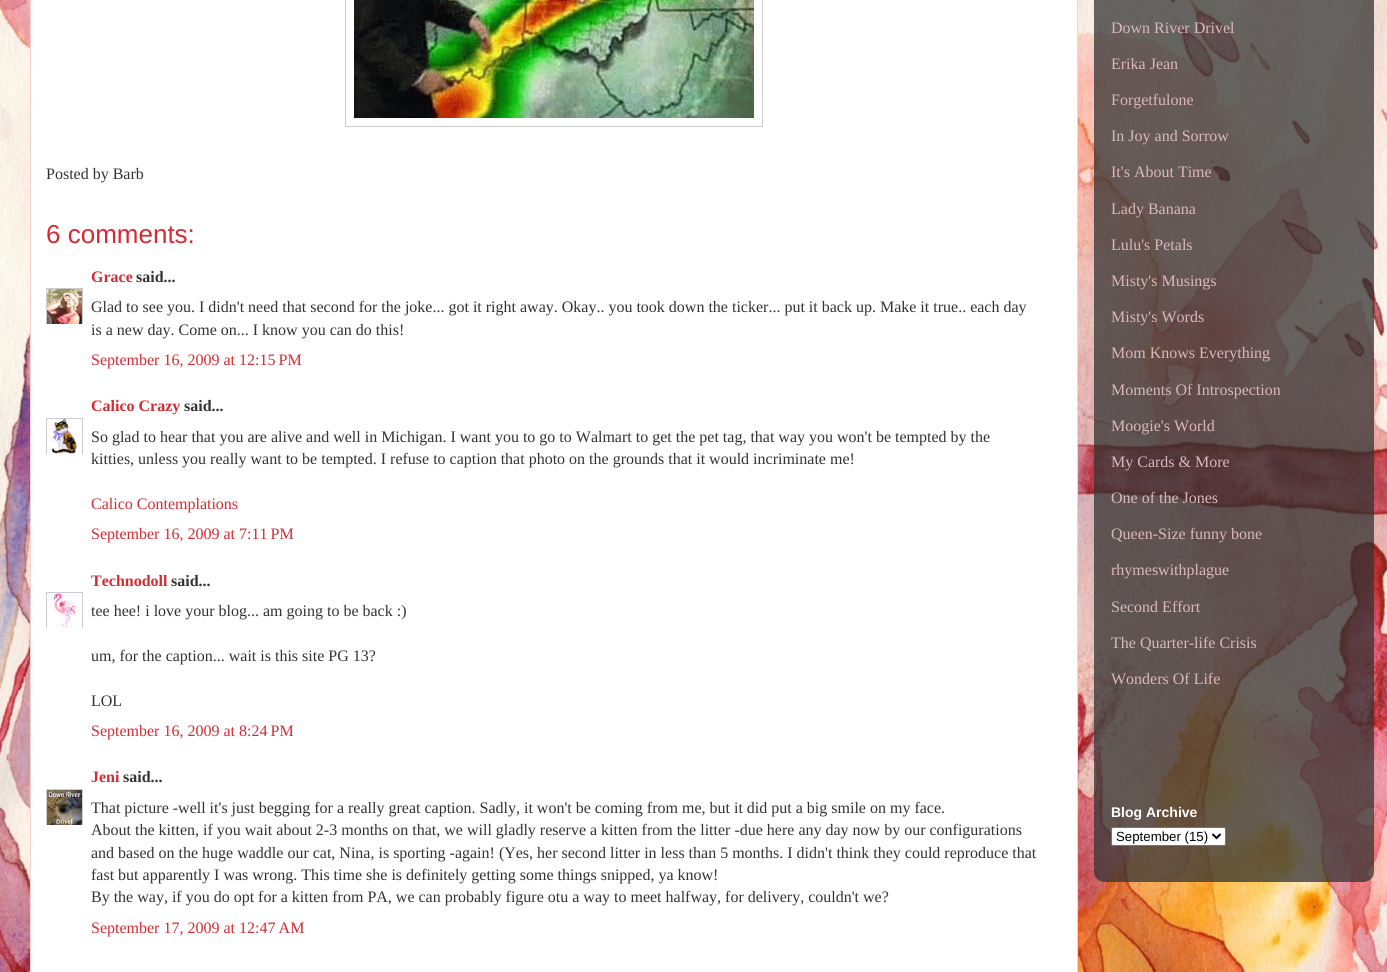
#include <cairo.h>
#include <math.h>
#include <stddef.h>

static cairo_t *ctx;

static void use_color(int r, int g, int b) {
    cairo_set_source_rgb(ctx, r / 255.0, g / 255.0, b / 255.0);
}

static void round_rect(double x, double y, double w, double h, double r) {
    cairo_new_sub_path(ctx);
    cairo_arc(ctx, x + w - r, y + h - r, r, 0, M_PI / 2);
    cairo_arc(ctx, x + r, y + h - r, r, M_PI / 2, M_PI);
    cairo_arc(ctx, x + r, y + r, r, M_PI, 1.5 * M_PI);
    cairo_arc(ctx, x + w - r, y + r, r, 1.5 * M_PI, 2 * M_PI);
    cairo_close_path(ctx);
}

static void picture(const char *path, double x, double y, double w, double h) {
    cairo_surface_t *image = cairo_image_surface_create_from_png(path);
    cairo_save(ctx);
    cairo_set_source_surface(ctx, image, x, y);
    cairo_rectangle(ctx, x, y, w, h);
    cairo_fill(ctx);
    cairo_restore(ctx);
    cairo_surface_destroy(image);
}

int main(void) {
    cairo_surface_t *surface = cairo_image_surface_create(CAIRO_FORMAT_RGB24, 1387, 972);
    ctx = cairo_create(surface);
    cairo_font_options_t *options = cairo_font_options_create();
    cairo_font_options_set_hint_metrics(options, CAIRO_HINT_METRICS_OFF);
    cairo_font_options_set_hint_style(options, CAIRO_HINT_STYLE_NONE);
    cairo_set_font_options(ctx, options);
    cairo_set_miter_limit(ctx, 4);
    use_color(255, 255, 255);
    cairo_paint(ctx);
    picture("img1.png", 0, 0, 1387, 972);
    use_color(255, 255, 255);
    cairo_rectangle(ctx, 30.5, -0.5, 1047, 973);
    cairo_fill_preserve(ctx);
    use_color(244, 211, 204);
    cairo_set_line_width(ctx, 1);
    cairo_stroke(ctx);
    cairo_rectangle(ctx, 345.5, -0.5, 417, 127);
    use_color(204, 204, 204);
    cairo_stroke(ctx);
    picture("img2.png", 354, 0, 400, 118);
    cairo_select_font_face(ctx, "Liberation Serif", CAIRO_FONT_SLANT_NORMAL, CAIRO_FONT_WEIGHT_NORMAL);
    cairo_set_font_size(ctx, 16);
    use_color(51, 51, 51);
    cairo_move_to(ctx, 46, 179);
    cairo_show_text(ctx, "Posted by Barb");
    cairo_select_font_face(ctx, "Liberation Sans", CAIRO_FONT_SLANT_NORMAL, CAIRO_FONT_WEIGHT_NORMAL);
    cairo_set_font_size(ctx, 26);
    use_color(213, 42, 51);
    cairo_move_to(ctx, 46, 243);
    cairo_show_text(ctx, "6 comments:");
    cairo_select_font_face(ctx, "Liberation Serif", CAIRO_FONT_SLANT_NORMAL, CAIRO_FONT_WEIGHT_BOLD);
    cairo_set_font_size(ctx, 16);
    cairo_move_to(ctx, 91, 282);
    cairo_show_text(ctx, "Grace");
    use_color(51, 51, 51);
    cairo_move_to(ctx, 136, 282);
    cairo_show_text(ctx, "said...");
    cairo_save(ctx);
    cairo_rectangle(ctx, 46, 288, 37, 36);
    cairo_clip(ctx);
    cairo_rectangle(ctx, 46.5, 288.5, 36, 36);
    use_color(204, 204, 204);
    cairo_stroke(ctx);
    cairo_restore(ctx);
    picture("img3.png", 47, 289, 35, 35);
    cairo_select_font_face(ctx, "Liberation Serif", CAIRO_FONT_SLANT_NORMAL, CAIRO_FONT_WEIGHT_NORMAL);
    cairo_move_to(ctx, 91, 312);
    cairo_show_text(ctx, "Glad to see you. I didn't need that second for the joke... got it right away. Okay.. you took down the ticker... put it back up. Make it true.. each day");
    cairo_move_to(ctx, 91, 335);
    cairo_show_text(ctx, "is a new day. Come on... I know you can do this!");
    use_color(213, 42, 51);
    cairo_move_to(ctx, 91, 365);
    cairo_show_text(ctx, "September 16, 2009 at 12:15 PM");
    cairo_select_font_face(ctx, "Liberation Serif", CAIRO_FONT_SLANT_NORMAL, CAIRO_FONT_WEIGHT_BOLD);
    cairo_move_to(ctx, 91, 411);
    cairo_show_text(ctx, "Calico Crazy");
    use_color(51, 51, 51);
    cairo_move_to(ctx, 184, 411);
    cairo_show_text(ctx, "said...");
    cairo_save(ctx);
    cairo_rectangle(ctx, 46, 418, 37, 36);
    cairo_clip(ctx);
    cairo_rectangle(ctx, 46.5, 418.5, 36, 36);
    use_color(204, 204, 204);
    cairo_stroke(ctx);
    cairo_restore(ctx);
    picture("img4.png", 51, 419, 26, 35);
    cairo_select_font_face(ctx, "Liberation Serif", CAIRO_FONT_SLANT_NORMAL, CAIRO_FONT_WEIGHT_NORMAL);
    cairo_move_to(ctx, 91, 442);
    cairo_show_text(ctx, "So glad to hear that you are alive and well in Michigan. I want you to go to Walmart to get the pet tag, that way you won't be tempted by the");
    cairo_move_to(ctx, 91, 464);
    cairo_show_text(ctx, "kitties, unless you really want to be tempted. I refuse to caption that photo on the grounds that it would incriminate me!");
    use_color(213, 42, 51);
    cairo_move_to(ctx, 91, 509);
    cairo_show_text(ctx, "Calico Contemplations");
    cairo_move_to(ctx, 91, 539);
    cairo_show_text(ctx, "September 16, 2009 at 7:11 PM");
    cairo_select_font_face(ctx, "Liberation Serif", CAIRO_FONT_SLANT_NORMAL, CAIRO_FONT_WEIGHT_BOLD);
    cairo_move_to(ctx, 91, 586);
    cairo_show_text(ctx, "Technodoll");
    use_color(51, 51, 51);
    cairo_move_to(ctx, 171, 586);
    cairo_show_text(ctx, "said...");
    cairo_save(ctx);
    cairo_rectangle(ctx, 46, 592, 37, 36);
    cairo_clip(ctx);
    cairo_rectangle(ctx, 46.5, 592.5, 36, 36);
    use_color(204, 204, 204);
    cairo_stroke(ctx);
    cairo_restore(ctx);
    picture("img5.png", 53, 593, 25, 35);
    cairo_select_font_face(ctx, "Liberation Serif", CAIRO_FONT_SLANT_NORMAL, CAIRO_FONT_WEIGHT_NORMAL);
    cairo_move_to(ctx, 91, 616);
    cairo_show_text(ctx, "tee hee! i love your blog... am going to be back :)");
    cairo_move_to(ctx, 91, 661);
    cairo_show_text(ctx, "um, for the caption... wait is this site PG 13?");
    cairo_move_to(ctx, 91, 706);
    cairo_show_text(ctx, "LOL");
    use_color(213, 42, 51);
    cairo_move_to(ctx, 91, 736);
    cairo_show_text(ctx, "September 16, 2009 at 8:24 PM");
    cairo_select_font_face(ctx, "Liberation Serif", CAIRO_FONT_SLANT_NORMAL, CAIRO_FONT_WEIGHT_BOLD);
    cairo_move_to(ctx, 91, 782);
    cairo_show_text(ctx, "Jeni");
    use_color(51, 51, 51);
    cairo_move_to(ctx, 123, 782);
    cairo_show_text(ctx, "said...");
    cairo_save(ctx);
    cairo_rectangle(ctx, 46, 789, 37, 36);
    cairo_clip(ctx);
    cairo_rectangle(ctx, 46.5, 789.5, 36, 36);
    use_color(204, 204, 204);
    cairo_stroke(ctx);
    cairo_restore(ctx);
    picture("img6.png", 47, 790, 35, 35);
    cairo_select_font_face(ctx, "Liberation Serif", CAIRO_FONT_SLANT_NORMAL, CAIRO_FONT_WEIGHT_NORMAL);
    cairo_move_to(ctx, 91, 813);
    cairo_show_text(ctx, "That picture -well it's just begging for a really great caption. Sadly, it won't be coming from me, but it did put a big smile on my face.");
    cairo_move_to(ctx, 91, 835);
    cairo_show_text(ctx, "About the kitten, if you wait about 2-3 months on that, we will gladly reserve a kitten from the litter -due here any day now by our configurations");
    cairo_move_to(ctx, 91, 858);
    cairo_show_text(ctx, "and based on the huge waddle our cat, Nina, is sporting -again! (Yes, her second litter in less than 5 months. I didn't think they could reproduce that");
    cairo_move_to(ctx, 91, 880);
    cairo_show_text(ctx, "fast but apparently I was wrong. This time she is definitely getting some things snipped, ya know!");
    cairo_move_to(ctx, 91, 902);
    cairo_show_text(ctx, "By the way, if you do opt for a kitten from PA, we can probably figure otu a way to meet halfway, for delivery, couldn't we?");
    use_color(213, 42, 51);
    cairo_move_to(ctx, 91, 933);
    cairo_show_text(ctx, "September 17, 2009 at 12:47 AM");
    picture("img7.png", 1094, 0, 280, 882);
    use_color(218, 183, 188);
    cairo_move_to(ctx, 1111, 33);
    cairo_show_text(ctx, "Down River Drivel");
    cairo_move_to(ctx, 1111, 69);
    cairo_show_text(ctx, "Erika Jean");
    cairo_move_to(ctx, 1111, 105);
    cairo_show_text(ctx, "Forgetfulone");
    cairo_move_to(ctx, 1111, 141);
    cairo_show_text(ctx, "In Joy and Sorrow");
    cairo_move_to(ctx, 1111, 177);
    cairo_show_text(ctx, "It's About Time");
    cairo_move_to(ctx, 1111, 214);
    cairo_show_text(ctx, "Lady Banana");
    cairo_move_to(ctx, 1111, 250);
    cairo_show_text(ctx, "Lulu's Petals");
    cairo_move_to(ctx, 1111, 286);
    cairo_show_text(ctx, "Misty's Musings");
    cairo_move_to(ctx, 1111, 322);
    cairo_show_text(ctx, "Misty's Words");
    cairo_move_to(ctx, 1111, 358);
    cairo_show_text(ctx, "Mom Knows Everything");
    cairo_move_to(ctx, 1111, 395);
    cairo_show_text(ctx, "Moments Of Introspection");
    cairo_move_to(ctx, 1111, 431);
    cairo_show_text(ctx, "Moogie's World");
    cairo_move_to(ctx, 1111, 467);
    cairo_show_text(ctx, "My Cards & More");
    cairo_move_to(ctx, 1111, 503);
    cairo_show_text(ctx, "One of the Jones");
    cairo_move_to(ctx, 1111, 539);
    cairo_show_text(ctx, "Queen-Size funny bone");
    cairo_move_to(ctx, 1111, 575);
    cairo_show_text(ctx, "rhymeswithplague");
    cairo_move_to(ctx, 1111, 612);
    cairo_show_text(ctx, "Second Effort");
    cairo_move_to(ctx, 1111, 648);
    cairo_show_text(ctx, "The Quarter-life Crisis");
    cairo_move_to(ctx, 1111, 684);
    cairo_show_text(ctx, "Wonders Of Life");
    cairo_select_font_face(ctx, "Liberation Sans", CAIRO_FONT_SLANT_NORMAL, CAIRO_FONT_WEIGHT_BOLD);
    cairo_set_font_size(ctx, 14);
    use_color(255, 255, 255);
    cairo_move_to(ctx, 1111, 817);
    cairo_show_text(ctx, "Blog Archive");
    round_rect(1111.5, 827.5, 114, 18, 1.5);
    cairo_fill_preserve(ctx);
    use_color(118, 118, 118);
    cairo_stroke(ctx);
    cairo_new_path(ctx);
    cairo_move_to(ctx, 1212.5, 834);
    cairo_line_to(ctx, 1216.5, 838);
    cairo_line_to(ctx, 1220.5, 834);
    use_color(0, 0, 0);
    cairo_set_line_width(ctx, 2);
    cairo_stroke(ctx);
    cairo_select_font_face(ctx, "Liberation Sans", CAIRO_FONT_SLANT_NORMAL, CAIRO_FONT_WEIGHT_NORMAL);
    cairo_set_font_size(ctx, 13.25);
    cairo_move_to(ctx, 1116, 841);
    cairo_show_text(ctx, "September (15)");
    cairo_surface_write_to_png(surface, "result.png");
    cairo_font_options_destroy(options);
    cairo_destroy(ctx);
    cairo_surface_destroy(surface);
    return 0;
}
